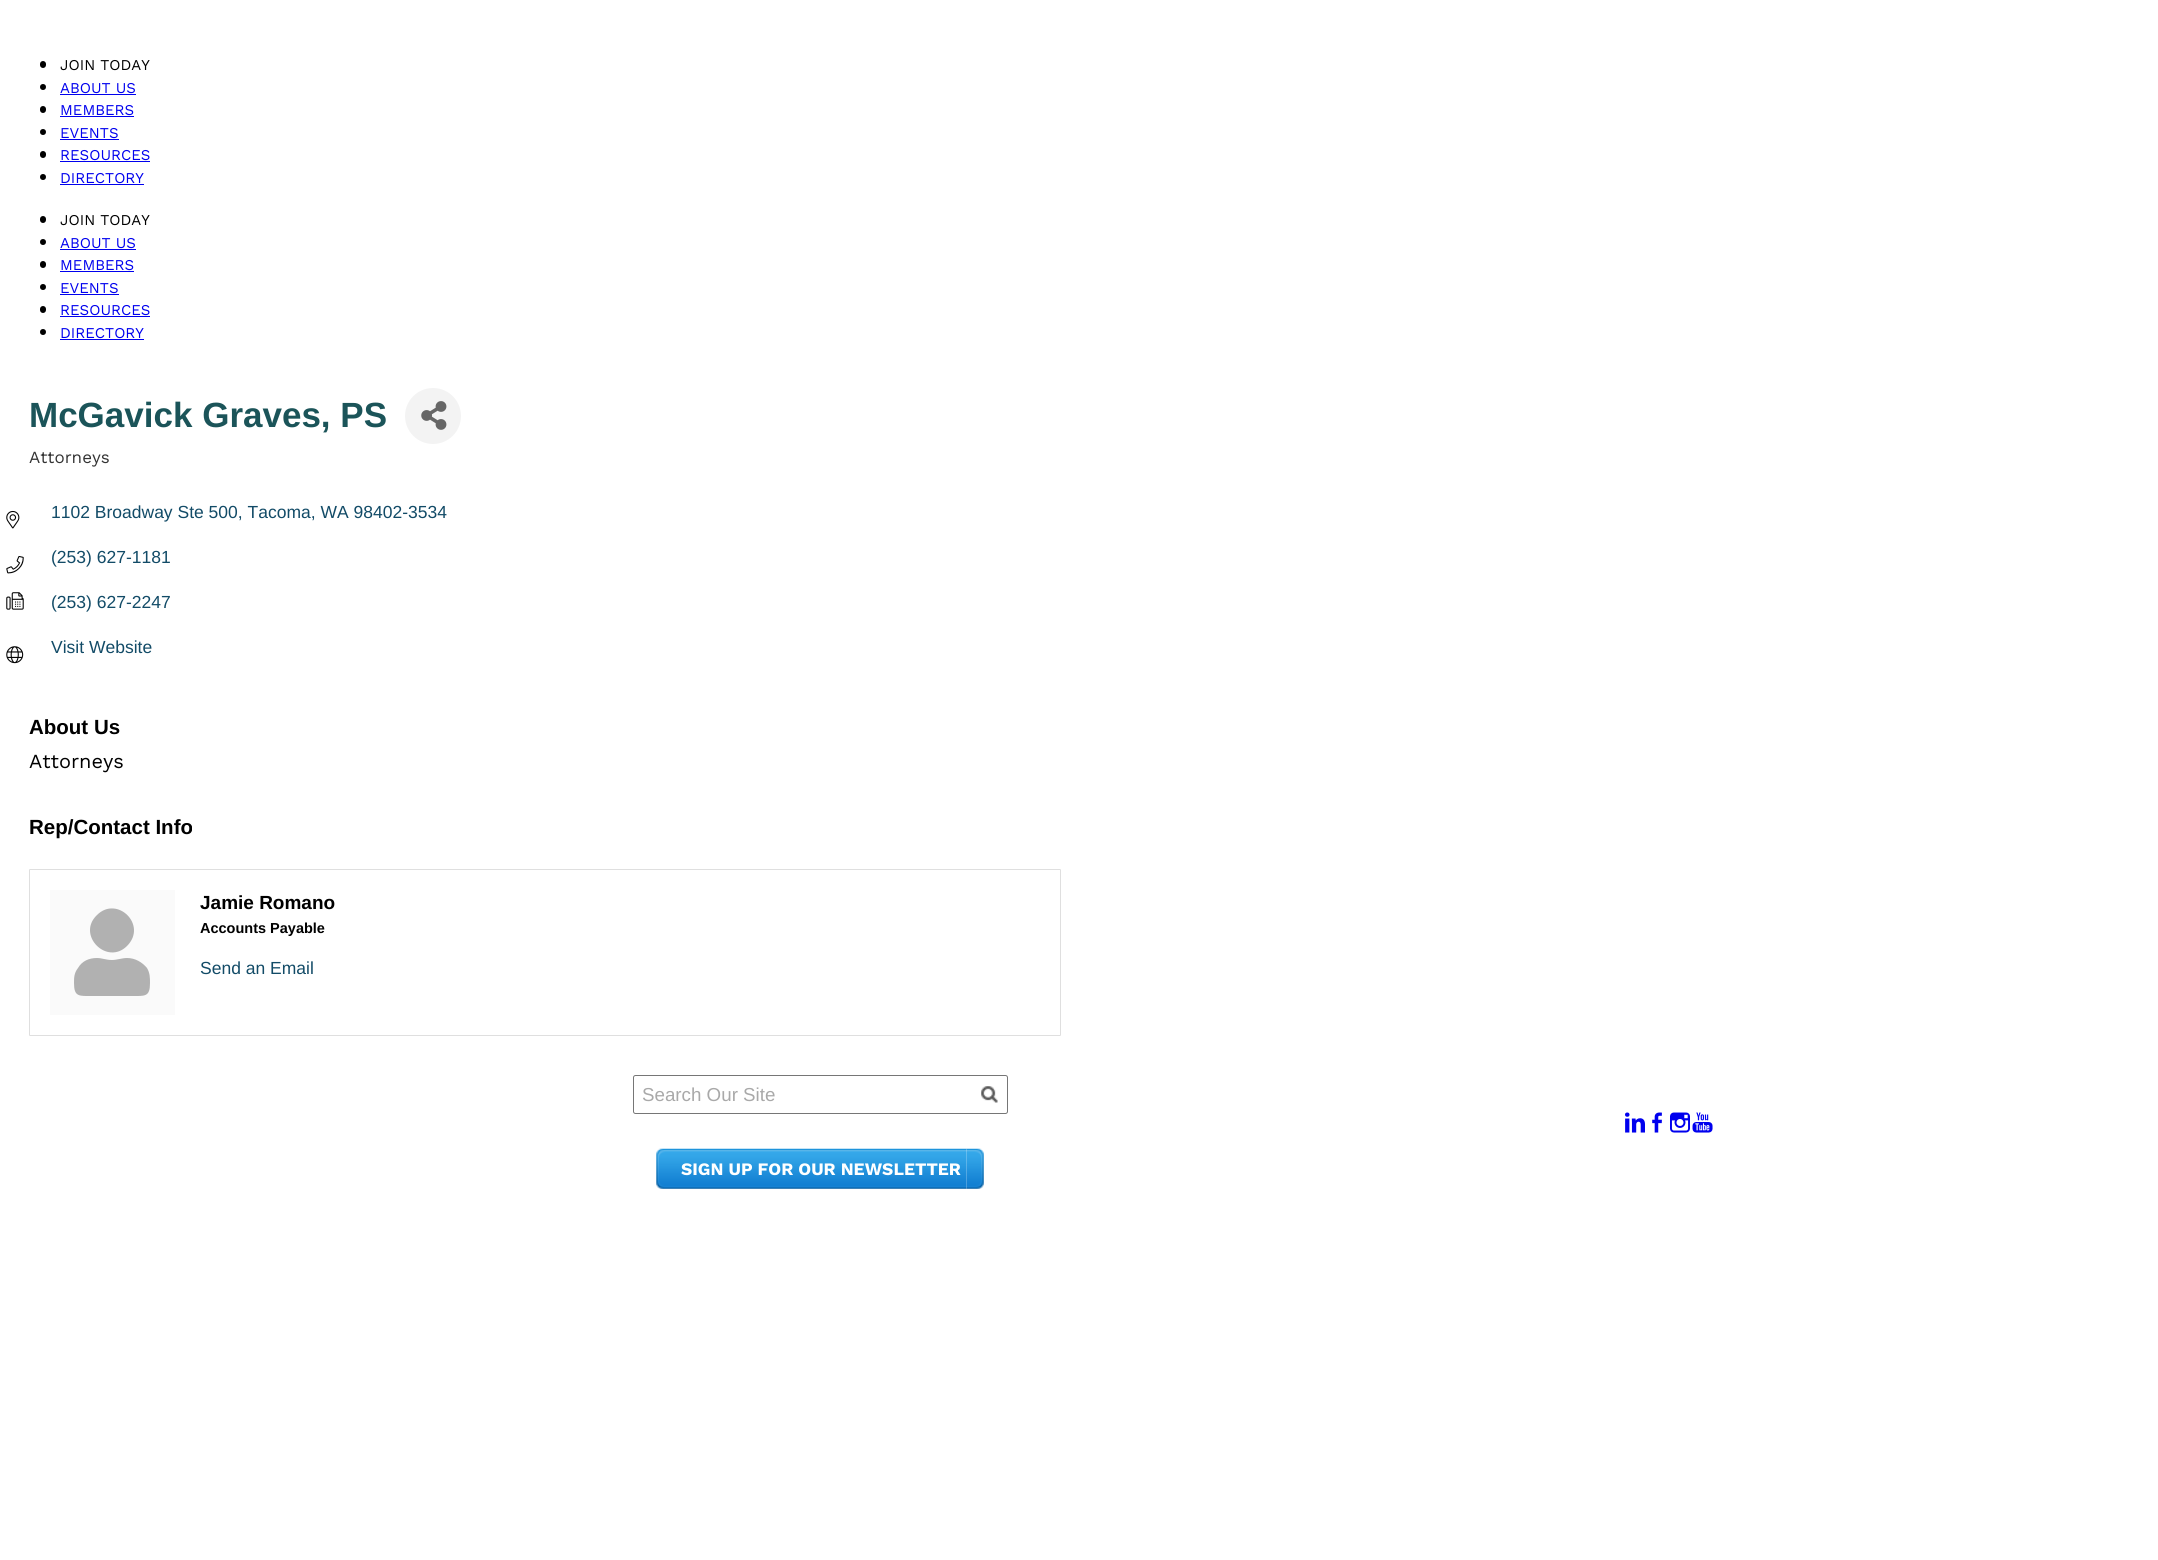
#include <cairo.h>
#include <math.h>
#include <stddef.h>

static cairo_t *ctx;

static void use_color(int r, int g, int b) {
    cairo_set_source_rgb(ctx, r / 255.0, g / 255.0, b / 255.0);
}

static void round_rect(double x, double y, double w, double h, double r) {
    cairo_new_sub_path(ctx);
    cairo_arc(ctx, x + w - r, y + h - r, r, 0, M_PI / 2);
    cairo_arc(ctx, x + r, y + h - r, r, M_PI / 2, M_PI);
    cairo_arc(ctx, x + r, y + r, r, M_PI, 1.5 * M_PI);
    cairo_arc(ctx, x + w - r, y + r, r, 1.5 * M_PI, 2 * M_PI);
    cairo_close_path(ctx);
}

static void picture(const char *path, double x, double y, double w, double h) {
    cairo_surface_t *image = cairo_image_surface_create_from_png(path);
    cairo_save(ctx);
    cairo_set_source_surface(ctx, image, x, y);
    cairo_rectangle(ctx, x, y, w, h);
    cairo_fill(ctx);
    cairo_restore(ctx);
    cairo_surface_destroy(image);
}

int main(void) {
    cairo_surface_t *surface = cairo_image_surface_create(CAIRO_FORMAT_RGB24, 2158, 1560);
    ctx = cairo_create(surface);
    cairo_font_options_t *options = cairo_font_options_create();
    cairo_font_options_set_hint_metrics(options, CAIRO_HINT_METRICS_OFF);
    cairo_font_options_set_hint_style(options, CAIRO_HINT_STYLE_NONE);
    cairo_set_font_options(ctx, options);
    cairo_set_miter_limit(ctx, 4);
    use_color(255, 255, 255);
    cairo_paint(ctx);
    use_color(0, 0, 0);
    round_rect(40, 61, 6, 7, 3);
    cairo_fill(ctx);
    cairo_select_font_face(ctx, "Work Sans", CAIRO_FONT_SLANT_NORMAL, CAIRO_FONT_WEIGHT_NORMAL);
    cairo_set_font_size(ctx, 15);
    cairo_move_to(ctx, 60, 70);
    cairo_show_text(ctx, "JOIN TODAY");
    cairo_new_path(ctx);
    cairo_arc(ctx, 43, 87, 3, 0, 2 * M_PI);
    cairo_fill(ctx);
    use_color(0, 0, 238);
    cairo_move_to(ctx, 60, 93);
    cairo_show_text(ctx, "ABOUT US");
    cairo_rectangle(ctx, 60, 94, 76, 1);
    cairo_fill(ctx);
    use_color(0, 0, 0);
    round_rect(40, 106, 6, 7, 3);
    cairo_fill(ctx);
    use_color(0, 0, 238);
    cairo_move_to(ctx, 60, 115);
    cairo_show_text(ctx, "MEMBERS");
    cairo_rectangle(ctx, 60, 116, 74, 1);
    cairo_fill(ctx);
    use_color(0, 0, 0);
    cairo_arc(ctx, 43, 132, 3, 0, 2 * M_PI);
    cairo_fill(ctx);
    use_color(0, 0, 238);
    cairo_move_to(ctx, 60, 138);
    cairo_show_text(ctx, "EVENTS");
    cairo_rectangle(ctx, 60, 139, 59, 1);
    cairo_fill(ctx);
    use_color(0, 0, 0);
    round_rect(40, 151, 6, 7, 3);
    cairo_fill(ctx);
    use_color(0, 0, 238);
    cairo_move_to(ctx, 60, 160);
    cairo_show_text(ctx, "RESOURCES");
    cairo_rectangle(ctx, 60, 161, 90, 1);
    cairo_fill(ctx);
    use_color(0, 0, 0);
    cairo_arc(ctx, 43, 177, 3, 0, 2 * M_PI);
    cairo_fill(ctx);
    use_color(0, 0, 238);
    cairo_move_to(ctx, 60, 183);
    cairo_show_text(ctx, "DIRECTORY");
    cairo_rectangle(ctx, 60, 184, 84, 1);
    cairo_fill(ctx);
    use_color(0, 0, 0);
    round_rect(40, 216, 6, 7, 3);
    cairo_fill(ctx);
    cairo_move_to(ctx, 60, 225);
    cairo_show_text(ctx, "JOIN TODAY");
    cairo_new_path(ctx);
    cairo_arc(ctx, 43, 242, 3, 0, 2 * M_PI);
    cairo_fill(ctx);
    use_color(0, 0, 238);
    cairo_move_to(ctx, 60, 248);
    cairo_show_text(ctx, "ABOUT US");
    cairo_rectangle(ctx, 60, 249, 76, 1);
    cairo_fill(ctx);
    use_color(0, 0, 0);
    round_rect(40, 261, 6, 7, 3);
    cairo_fill(ctx);
    use_color(0, 0, 238);
    cairo_move_to(ctx, 60, 270);
    cairo_show_text(ctx, "MEMBERS");
    cairo_rectangle(ctx, 60, 271, 74, 1);
    cairo_fill(ctx);
    use_color(0, 0, 0);
    cairo_arc(ctx, 43, 287, 3, 0, 2 * M_PI);
    cairo_fill(ctx);
    use_color(0, 0, 238);
    cairo_move_to(ctx, 60, 293);
    cairo_show_text(ctx, "EVENTS");
    cairo_rectangle(ctx, 60, 294, 59, 1);
    cairo_fill(ctx);
    use_color(0, 0, 0);
    round_rect(40, 306, 6, 7, 3);
    cairo_fill(ctx);
    use_color(0, 0, 238);
    cairo_move_to(ctx, 60, 315);
    cairo_show_text(ctx, "RESOURCES");
    cairo_rectangle(ctx, 60, 316, 90, 1);
    cairo_fill(ctx);
    use_color(0, 0, 0);
    cairo_arc(ctx, 43, 332, 3, 0, 2 * M_PI);
    cairo_fill(ctx);
    use_color(0, 0, 238);
    cairo_move_to(ctx, 60, 338);
    cairo_show_text(ctx, "DIRECTORY");
    cairo_rectangle(ctx, 60, 339, 84, 1);
    cairo_fill(ctx);
    cairo_select_font_face(ctx, "Liberation Sans", CAIRO_FONT_SLANT_NORMAL, CAIRO_FONT_WEIGHT_BOLD);
    cairo_set_font_size(ctx, 35);
    use_color(27, 84, 89);
    cairo_move_to(ctx, 29, 427);
    cairo_show_text(ctx, "McGavick Graves, PS");
    use_color(243, 243, 243);
    cairo_new_path(ctx);
    cairo_arc(ctx, 433, 416, 28, 0, 2 * M_PI);
    cairo_fill(ctx);
    picture("img1.png", 421, 401, 26, 29);
    cairo_select_font_face(ctx, "Work Sans", CAIRO_FONT_SLANT_NORMAL, CAIRO_FONT_WEIGHT_NORMAL);
    cairo_set_font_size(ctx, 17);
    use_color(51, 51, 51);
    cairo_move_to(ctx, 29, 463);
    cairo_show_text(ctx, "Attorneys");
    picture("img2.png", 6, 510, 14, 19);
    cairo_select_font_face(ctx, "Liberation Sans", CAIRO_FONT_SLANT_NORMAL, CAIRO_FONT_WEIGHT_NORMAL);
    cairo_set_font_size(ctx, 17.5);
    use_color(18, 75, 103);
    cairo_move_to(ctx, 51, 518);
    cairo_show_text(ctx, "1102 Broadway Ste 500, Tacoma, WA 98402-3534");
    picture("img3.png", 6, 556, 18, 18);
    cairo_move_to(ctx, 51, 563);
    cairo_show_text(ctx, "(253) 627-1181");
    picture("img4.png", 6, 592, 18, 18);
    cairo_move_to(ctx, 51, 608);
    cairo_show_text(ctx, "(253) 627-2247");
    picture("img5.png", 6, 646, 18, 18);
    cairo_move_to(ctx, 51, 653);
    cairo_show_text(ctx, "Visit Website");
    cairo_select_font_face(ctx, "Liberation Sans", CAIRO_FONT_SLANT_NORMAL, CAIRO_FONT_WEIGHT_BOLD);
    cairo_set_font_size(ctx, 20.5);
    use_color(0, 0, 0);
    cairo_move_to(ctx, 29, 734);
    cairo_show_text(ctx, "About Us");
    cairo_select_font_face(ctx, "Work Sans", CAIRO_FONT_SLANT_NORMAL, CAIRO_FONT_WEIGHT_NORMAL);
    cairo_set_font_size(ctx, 20);
    cairo_move_to(ctx, 29, 768);
    cairo_show_text(ctx, "Attorneys");
    cairo_select_font_face(ctx, "Liberation Sans", CAIRO_FONT_SLANT_NORMAL, CAIRO_FONT_WEIGHT_BOLD);
    cairo_set_font_size(ctx, 20.5);
    cairo_move_to(ctx, 29, 834);
    cairo_show_text(ctx, "Rep/Contact Info");
    round_rect(29.5, 869.5, 1031, 166, 0.5);
    use_color(223, 223, 223);
    cairo_set_line_width(ctx, 1);
    cairo_stroke(ctx);
    use_color(250, 250, 250);
    cairo_rectangle(ctx, 50, 890, 125, 125);
    cairo_fill(ctx);
    use_color(177, 177, 177);
    cairo_new_path(ctx);
    cairo_move_to(ctx, 127, 946);
    cairo_curve_to(ctx, 107, 966, 76, 935, 97, 915);
    cairo_curve_to(ctx, 117, 895, 148, 925, 127, 946);
    cairo_close_path(ctx);
    cairo_move_to(ctx, 127, 958);
    cairo_curve_to(ctx, 135, 958, 142, 962, 147, 968);
    cairo_curve_to(ctx, 150, 973, 150, 978, 150, 983);
    cairo_curve_to(ctx, 150, 997, 145, 996, 132, 996);
    cairo_line_to(ctx, 92, 996);
    cairo_curve_to(ctx, 79, 996, 74, 997, 74, 983);
    cairo_curve_to(ctx, 74, 978, 74, 973, 78, 968);
    cairo_curve_to(ctx, 82, 961, 89, 958, 97, 958);
    cairo_curve_to(ctx, 102, 958, 106, 960, 112, 960);
    cairo_curve_to(ctx, 117, 960, 122, 958, 127, 958);
    cairo_close_path(ctx);
    cairo_fill(ctx);
    cairo_set_font_size(ctx, 19);
    use_color(0, 0, 0);
    cairo_move_to(ctx, 200, 909);
    cairo_show_text(ctx, "Jamie Romano");
    cairo_set_font_size(ctx, 14.5);
    cairo_move_to(ctx, 200, 933);
    cairo_show_text(ctx, "Accounts Payable");
    cairo_select_font_face(ctx, "Liberation Sans", CAIRO_FONT_SLANT_NORMAL, CAIRO_FONT_WEIGHT_NORMAL);
    cairo_set_font_size(ctx, 17.5);
    use_color(18, 75, 103);
    cairo_move_to(ctx, 200, 974);
    cairo_show_text(ctx, "Send an Email");
    round_rect(633.5, 1075.5, 374, 38, 2);
    use_color(118, 118, 118);
    cairo_stroke(ctx);
    cairo_set_font_size(ctx, 18.75);
    use_color(169, 169, 169);
    cairo_move_to(ctx, 642, 1101);
    cairo_show_text(ctx, "Search Our Site");
    picture("img6.png", 981, 1086, 17, 17);
    picture("img7.png", 966, 1148, 18, 41);
    picture("img8.png", 656, 1148, 311, 41);
    cairo_select_font_face(ctx, "Work Sans", CAIRO_FONT_SLANT_NORMAL, CAIRO_FONT_WEIGHT_BOLD);
    cairo_set_font_size(ctx, 17.5);
    use_color(255, 255, 255);
    cairo_move_to(ctx, 681, 1175);
    cairo_show_text(ctx, "SIGN UP FOR OUR NEWSLETTER");
    picture("img9.png", 1625, 1112, 20, 21);
    picture("img10.png", 1652, 1112, 10, 21);
    picture("img11.png", 1670, 1112, 20, 21);
    picture("img12.png", 1692, 1112, 21, 21);
    cairo_surface_write_to_png(surface, "result.png");
    cairo_font_options_destroy(options);
    cairo_destroy(ctx);
    cairo_surface_destroy(surface);
    return 0;
}
